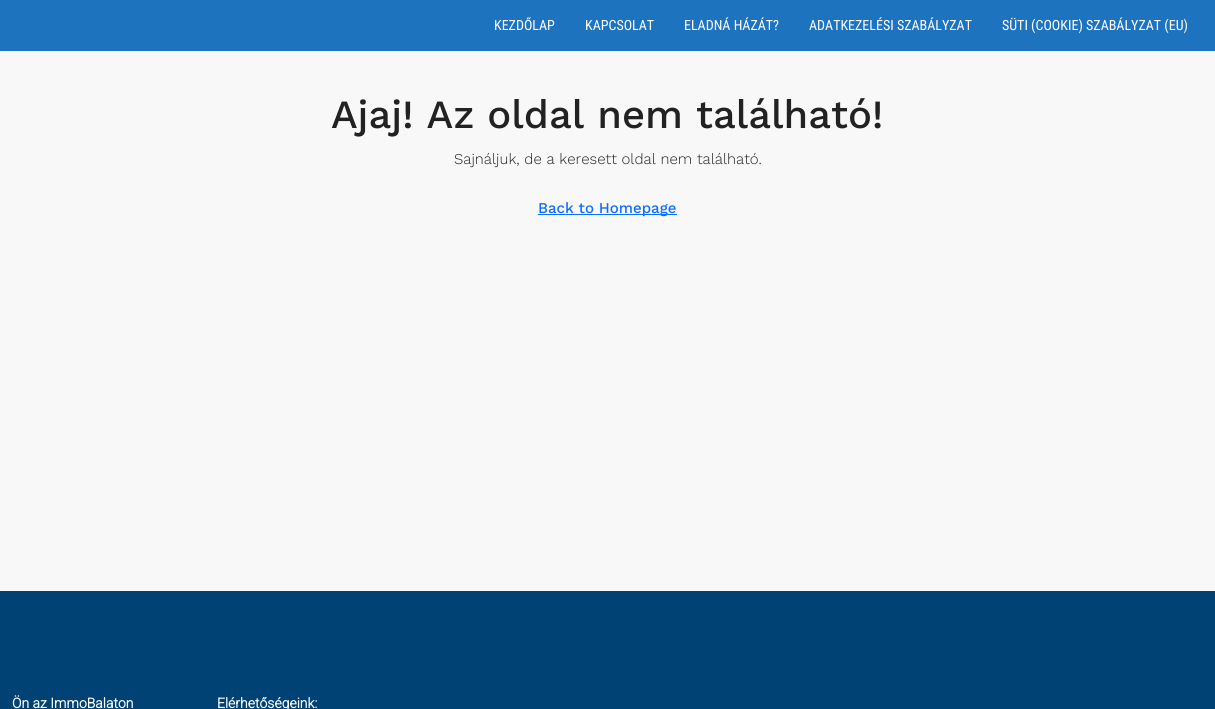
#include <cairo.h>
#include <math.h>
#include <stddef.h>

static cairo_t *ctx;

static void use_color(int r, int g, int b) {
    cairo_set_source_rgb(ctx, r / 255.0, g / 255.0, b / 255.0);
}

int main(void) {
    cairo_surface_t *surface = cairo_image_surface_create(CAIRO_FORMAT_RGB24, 1215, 709);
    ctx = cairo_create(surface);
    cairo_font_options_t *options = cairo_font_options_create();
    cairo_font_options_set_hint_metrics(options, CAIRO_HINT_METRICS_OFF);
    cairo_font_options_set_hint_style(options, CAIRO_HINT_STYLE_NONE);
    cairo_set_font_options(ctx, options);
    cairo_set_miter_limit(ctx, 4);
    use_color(248, 248, 248);
    cairo_paint(ctx);
    use_color(30, 115, 190);
    cairo_rectangle(ctx, 0, 0, 1215, 51);
    cairo_fill(ctx);
    cairo_select_font_face(ctx, "Roboto Condensed", CAIRO_FONT_SLANT_NORMAL, CAIRO_FONT_WEIGHT_NORMAL);
    cairo_set_font_size(ctx, 14);
    use_color(255, 255, 255);
    cairo_move_to(ctx, 494, 30);
    cairo_show_text(ctx, "KEZDŐLAP");
    cairo_move_to(ctx, 585, 30);
    cairo_show_text(ctx, "KAPCSOLAT");
    cairo_move_to(ctx, 684, 30);
    cairo_show_text(ctx, "ELADNÁ HÁZÁT?");
    cairo_move_to(ctx, 809, 30);
    cairo_show_text(ctx, "ADATKEZELÉSI SZABÁLYZAT");
    cairo_move_to(ctx, 1002, 30);
    cairo_show_text(ctx, "SÜTI (COOKIE) SZABÁLYZAT (EU)");
    cairo_select_font_face(ctx, "Work Sans Medium", CAIRO_FONT_SLANT_NORMAL, CAIRO_FONT_WEIGHT_NORMAL);
    cairo_set_font_size(ctx, 40);
    use_color(34, 34, 34);
    cairo_move_to(ctx, 331, 128);
    cairo_show_text(ctx, "Ajaj! Az oldal nem található!");
    cairo_select_font_face(ctx, "Work Sans Light", CAIRO_FONT_SLANT_NORMAL, CAIRO_FONT_WEIGHT_NORMAL);
    cairo_set_font_size(ctx, 15);
    cairo_move_to(ctx, 454, 164);
    cairo_show_text(ctx, "Sajnáljuk, de a keresett oldal nem található.");
    use_color(13, 110, 253);
    cairo_rectangle(ctx, 538, 214, 139, 1);
    cairo_fill(ctx);
    cairo_select_font_face(ctx, "Work Sans Medium", CAIRO_FONT_SLANT_NORMAL, CAIRO_FONT_WEIGHT_NORMAL);
    cairo_move_to(ctx, 538, 213);
    cairo_show_text(ctx, "Back to Homepage");
    use_color(0, 66, 116);
    cairo_rectangle(ctx, 0, 591, 1215, 118);
    cairo_fill(ctx);
    cairo_select_font_face(ctx, "Roboto", CAIRO_FONT_SLANT_NORMAL, CAIRO_FONT_WEIGHT_BOLD);
    cairo_set_font_size(ctx, 14);
    use_color(255, 255, 255);
    cairo_move_to(ctx, 12, 708);
    cairo_show_text(ctx, "Ön az ImmoBalaton");
    cairo_move_to(ctx, 217, 708);
    cairo_show_text(ctx, "Elérhetőségeink:");
    cairo_surface_write_to_png(surface, "result.png");
    cairo_font_options_destroy(options);
    cairo_destroy(ctx);
    cairo_surface_destroy(surface);
    return 0;
}
